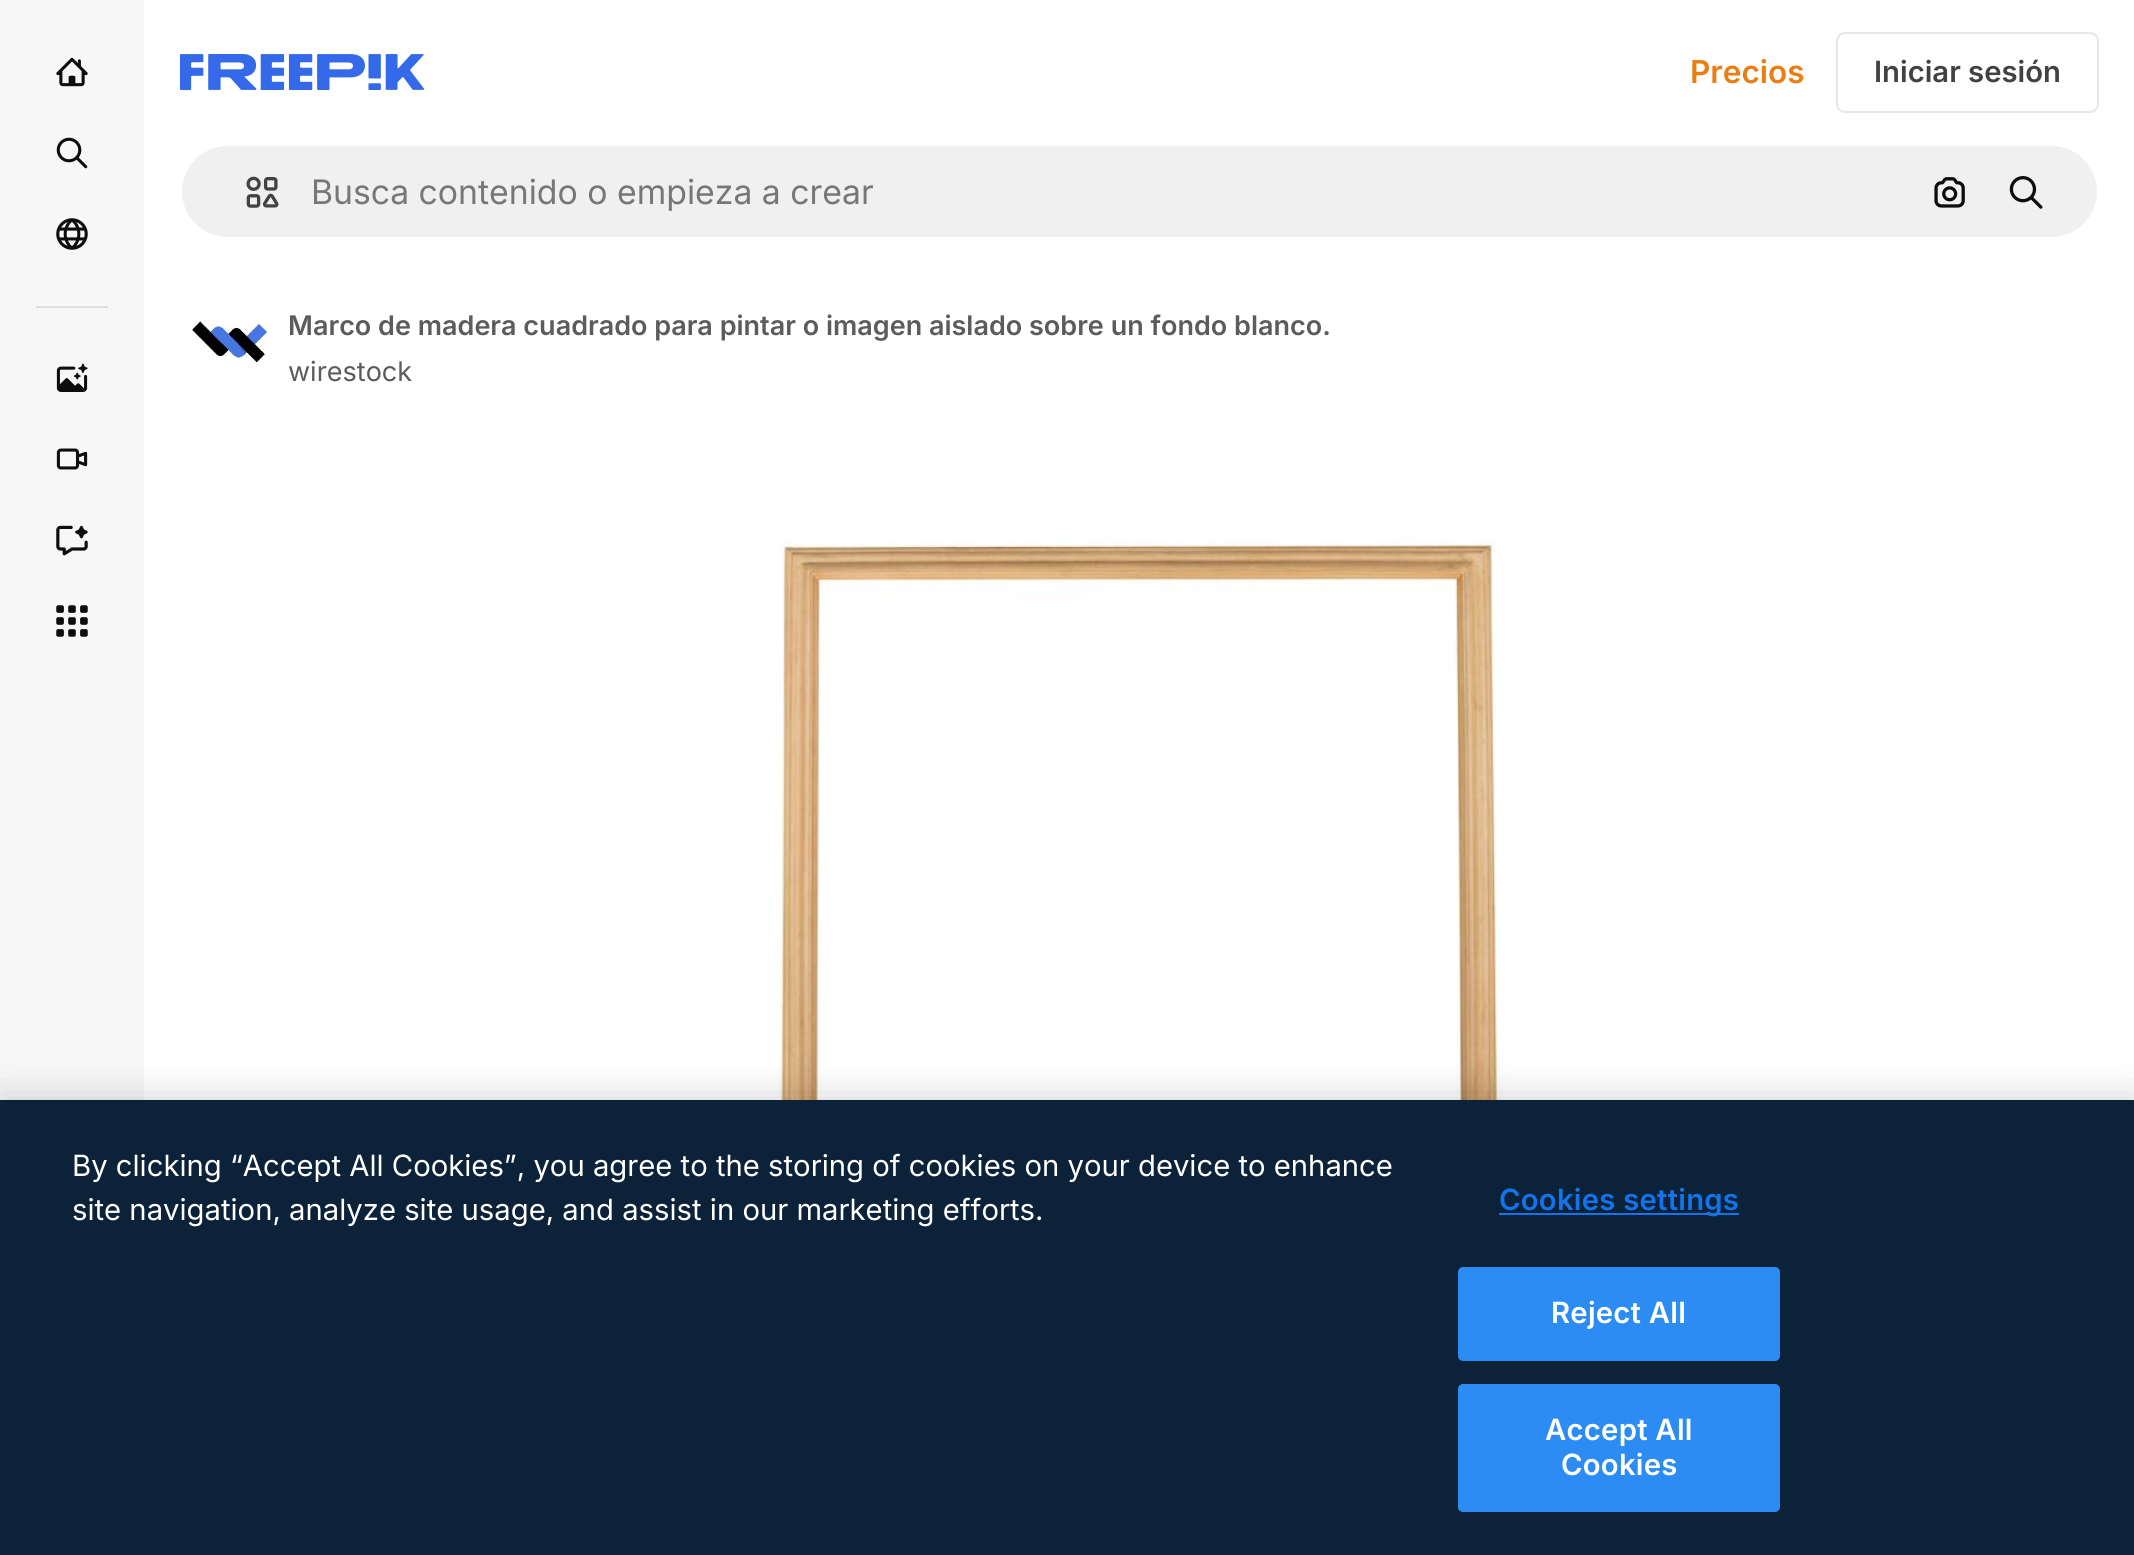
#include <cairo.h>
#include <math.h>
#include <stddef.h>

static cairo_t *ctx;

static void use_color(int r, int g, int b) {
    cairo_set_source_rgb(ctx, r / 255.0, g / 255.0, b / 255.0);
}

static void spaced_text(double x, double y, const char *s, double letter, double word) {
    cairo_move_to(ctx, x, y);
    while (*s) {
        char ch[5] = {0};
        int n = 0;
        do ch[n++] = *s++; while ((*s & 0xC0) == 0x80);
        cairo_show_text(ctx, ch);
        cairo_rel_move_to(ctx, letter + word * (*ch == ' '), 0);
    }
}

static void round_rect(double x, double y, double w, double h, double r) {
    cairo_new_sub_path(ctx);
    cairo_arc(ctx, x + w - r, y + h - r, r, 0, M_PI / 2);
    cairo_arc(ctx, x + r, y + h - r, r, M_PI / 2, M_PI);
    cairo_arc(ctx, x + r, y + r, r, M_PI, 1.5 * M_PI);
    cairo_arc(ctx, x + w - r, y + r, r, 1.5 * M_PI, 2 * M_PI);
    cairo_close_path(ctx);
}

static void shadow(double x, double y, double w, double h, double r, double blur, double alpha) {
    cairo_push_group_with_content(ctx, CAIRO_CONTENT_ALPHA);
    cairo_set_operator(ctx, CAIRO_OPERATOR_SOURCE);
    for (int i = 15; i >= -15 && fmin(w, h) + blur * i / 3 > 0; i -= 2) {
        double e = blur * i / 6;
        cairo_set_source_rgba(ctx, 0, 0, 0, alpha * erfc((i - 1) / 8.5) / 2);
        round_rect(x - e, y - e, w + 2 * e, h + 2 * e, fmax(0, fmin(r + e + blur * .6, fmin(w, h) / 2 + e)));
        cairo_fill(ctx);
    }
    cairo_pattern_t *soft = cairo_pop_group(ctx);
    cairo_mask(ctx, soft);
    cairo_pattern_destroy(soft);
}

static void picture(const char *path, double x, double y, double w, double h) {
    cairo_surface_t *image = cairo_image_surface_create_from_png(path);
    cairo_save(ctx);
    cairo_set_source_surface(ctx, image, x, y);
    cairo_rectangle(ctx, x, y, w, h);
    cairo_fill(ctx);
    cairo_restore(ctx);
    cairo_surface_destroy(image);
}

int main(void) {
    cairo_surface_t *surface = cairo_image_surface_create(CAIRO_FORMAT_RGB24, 2134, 1555);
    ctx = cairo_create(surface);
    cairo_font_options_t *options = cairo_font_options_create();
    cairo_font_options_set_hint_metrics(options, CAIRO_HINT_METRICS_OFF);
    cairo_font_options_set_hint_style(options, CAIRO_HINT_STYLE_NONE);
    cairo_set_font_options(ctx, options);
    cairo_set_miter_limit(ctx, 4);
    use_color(255, 255, 255);
    cairo_paint(ctx);
    use_color(247, 247, 247);
    cairo_rectangle(ctx, 0, 0, 144, 1100);
    cairo_fill(ctx);
    picture("img1.png", 56, 57, 32, 30);
    picture("img2.png", 56, 137, 32, 32);
    picture("img3.png", 56, 218, 32, 32);
    use_color(224, 224, 224);
    cairo_rectangle(ctx, 36, 306, 72, 2);
    cairo_fill(ctx);
    picture("img4.png", 56, 363, 32, 29);
    picture("img5.png", 56, 448, 32, 22);
    picture("img6.png", 56, 525, 32, 31);
    picture("img7.png", 56, 605, 32, 32);
    picture("img8.png", 180, 54, 245, 36);
    cairo_select_font_face(ctx, "Inter SemiBold", CAIRO_FONT_SLANT_NORMAL, CAIRO_FONT_WEIGHT_NORMAL);
    cairo_set_font_size(ctx, 31.5);
    use_color(234, 126, 17);
    cairo_move_to(ctx, 1690, 83);
    cairo_show_text(ctx, "Precios");
    round_rect(1837, 33, 261, 79, 8);
    use_color(231, 231, 231);
    cairo_stroke(ctx);
    cairo_set_font_size(ctx, 29.25);
    use_color(66, 66, 66);
    cairo_move_to(ctx, 1874, 82);
    cairo_show_text(ctx, "Iniciar sesión");
    use_color(240, 240, 240);
    round_rect(181, 145, 1917, 93, 46.5);
    cairo_fill_preserve(ctx);
    use_color(255, 255, 255);
    cairo_stroke(ctx);
    picture("img9.png", 246, 176, 33, 32);
    cairo_select_font_face(ctx, "Inter", CAIRO_FONT_SLANT_NORMAL, CAIRO_FONT_WEIGHT_NORMAL);
    cairo_set_font_size(ctx, 33.75);
    use_color(119, 119, 119);
    cairo_move_to(ctx, 311, 204);
    cairo_show_text(ctx, "Busca contenido o empieza a crear");
    picture("img10.png", 1934, 177, 31, 31);
    picture("img11.png", 2009, 176, 34, 33);
    picture("img12.png", 192, 314, 77, 48);
    cairo_select_font_face(ctx, "Inter SemiBold", CAIRO_FONT_SLANT_NORMAL, CAIRO_FONT_WEIGHT_NORMAL);
    cairo_set_font_size(ctx, 27);
    use_color(92, 92, 92);
    cairo_move_to(ctx, 288, 335);
    cairo_show_text(ctx, "Marco de madera cuadrado para pintar o imagen aislado sobre un fondo blanco.");
    cairo_select_font_face(ctx, "Inter", CAIRO_FONT_SLANT_NORMAL, CAIRO_FONT_WEIGHT_NORMAL);
    cairo_move_to(ctx, 288, 381);
    cairo_show_text(ctx, "wirestock");
    picture("img13.png", 778, 538, 728, 562);
    use_color(0, 0, 0);
    shadow(0, 1100, 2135, 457, 0, 20, 0.2);
    use_color(11, 34, 57);
    cairo_rectangle(ctx, 0, 1100, 2134, 455);
    cairo_fill(ctx);
    cairo_set_font_size(ctx, 29.25);
    use_color(255, 255, 255);
    cairo_move_to(ctx, 72, 1176);
    cairo_show_text(ctx, "By clicking “Accept All Cookies”, you agree to the storing of cookies on your device to enhance");
    cairo_move_to(ctx, 72, 1220);
    cairo_show_text(ctx, "site navigation, analyze site usage, and assist in our marketing efforts.");
    use_color(18, 115, 235);
    cairo_rectangle(ctx, 1499, 1213, 240, 2);
    cairo_fill(ctx);
    cairo_select_font_face(ctx, "Inter SemiBold", CAIRO_FONT_SLANT_NORMAL, CAIRO_FONT_WEIGHT_NORMAL);
    spaced_text(1499, 1210, "Cookies settings", 0.25, 0);
    use_color(44, 140, 244);
    round_rect(1459, 1268, 320, 92, 4);
    cairo_fill_preserve(ctx);
    cairo_stroke(ctx);
    use_color(255, 255, 255);
    spaced_text(1551, 1323, "Reject All", 0.25, 0);
    use_color(44, 140, 244);
    round_rect(1459, 1385, 320, 126, 4);
    cairo_fill_preserve(ctx);
    cairo_stroke(ctx);
    use_color(255, 255, 255);
    spaced_text(1545, 1440, "Accept All", 0.25, 0);
    spaced_text(1561, 1475, "Cookies", 0.25, 0);
    cairo_surface_write_to_png(surface, "result.png");
    cairo_font_options_destroy(options);
    cairo_destroy(ctx);
    cairo_surface_destroy(surface);
    return 0;
}
